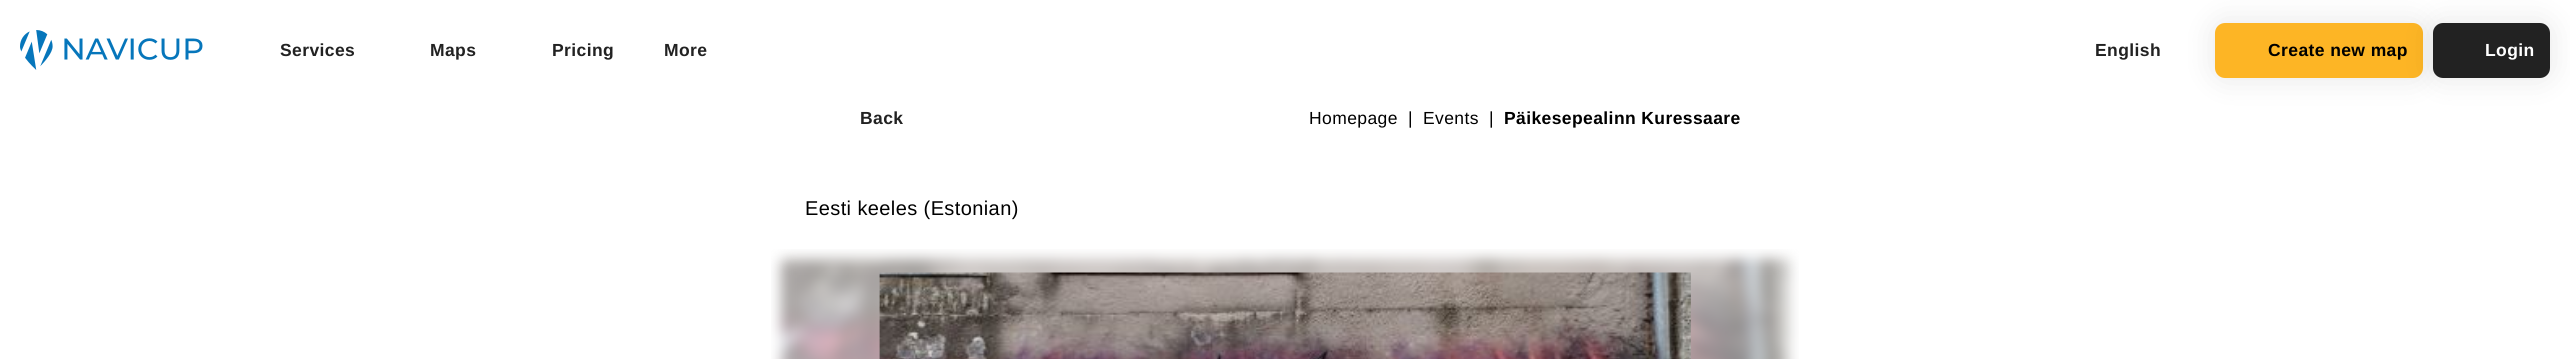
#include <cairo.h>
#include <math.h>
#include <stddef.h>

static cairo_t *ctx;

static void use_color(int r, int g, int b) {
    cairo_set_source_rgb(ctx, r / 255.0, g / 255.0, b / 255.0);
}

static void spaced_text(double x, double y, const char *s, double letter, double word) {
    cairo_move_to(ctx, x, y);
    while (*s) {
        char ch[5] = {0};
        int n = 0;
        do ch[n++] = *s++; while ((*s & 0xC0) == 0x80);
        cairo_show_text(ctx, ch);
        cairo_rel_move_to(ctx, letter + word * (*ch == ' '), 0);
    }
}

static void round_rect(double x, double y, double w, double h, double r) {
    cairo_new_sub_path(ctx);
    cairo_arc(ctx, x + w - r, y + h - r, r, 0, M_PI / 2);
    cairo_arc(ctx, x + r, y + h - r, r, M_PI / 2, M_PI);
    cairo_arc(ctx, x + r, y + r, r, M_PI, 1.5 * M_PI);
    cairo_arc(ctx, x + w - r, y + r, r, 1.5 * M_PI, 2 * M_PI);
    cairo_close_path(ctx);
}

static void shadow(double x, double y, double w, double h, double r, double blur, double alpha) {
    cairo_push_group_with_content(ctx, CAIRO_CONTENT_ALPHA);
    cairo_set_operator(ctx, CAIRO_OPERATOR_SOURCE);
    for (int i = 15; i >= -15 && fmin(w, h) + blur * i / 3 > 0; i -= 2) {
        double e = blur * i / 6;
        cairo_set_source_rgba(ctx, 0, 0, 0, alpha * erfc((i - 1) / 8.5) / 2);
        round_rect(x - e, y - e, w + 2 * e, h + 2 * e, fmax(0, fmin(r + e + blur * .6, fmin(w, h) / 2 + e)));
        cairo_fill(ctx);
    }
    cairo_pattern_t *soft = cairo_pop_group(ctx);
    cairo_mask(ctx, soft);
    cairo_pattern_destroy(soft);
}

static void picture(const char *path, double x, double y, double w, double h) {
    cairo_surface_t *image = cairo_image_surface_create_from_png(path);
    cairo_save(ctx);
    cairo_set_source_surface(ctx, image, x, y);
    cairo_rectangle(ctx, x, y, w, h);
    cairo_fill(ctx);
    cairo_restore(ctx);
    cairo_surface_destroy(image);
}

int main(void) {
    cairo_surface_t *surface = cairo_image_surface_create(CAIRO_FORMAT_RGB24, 2570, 359);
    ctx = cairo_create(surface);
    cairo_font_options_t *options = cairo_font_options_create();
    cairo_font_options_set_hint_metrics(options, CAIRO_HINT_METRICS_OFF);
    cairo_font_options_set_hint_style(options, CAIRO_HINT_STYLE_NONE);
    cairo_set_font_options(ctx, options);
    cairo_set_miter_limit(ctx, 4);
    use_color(255, 255, 255);
    cairo_paint(ctx);
    picture("img1.png", 20, 30, 183, 40);
    cairo_select_font_face(ctx, "Liberation Sans", CAIRO_FONT_SLANT_NORMAL, CAIRO_FONT_WEIGHT_BOLD);
    cairo_set_font_size(ctx, 17.5);
    use_color(34, 34, 34);
    spaced_text(280, 56, "Services", 0.4, 0);
    spaced_text(430, 56, "Maps", 0.4, 0);
    spaced_text(552, 56, "Pricing", 0.4, 0);
    spaced_text(664, 56, "More", 0.4, 0);
    spaced_text(2095, 56, "English", 0.4, 0);
    use_color(0, 0, 0);
    shadow(2215, 23, 208, 55, 10, 15, 0.1);
    use_color(253, 181, 37);
    round_rect(2215, 23, 208, 55, 10);
    cairo_fill(ctx);
    use_color(0, 0, 0);
    spaced_text(2268, 56, "Create new map", 0.4, 0);
    use_color(0, 0, 0);
    shadow(2433, 23, 117, 55, 10, 15, 0.1);
    use_color(34, 34, 34);
    round_rect(2433, 23, 117, 55, 10);
    cairo_fill(ctx);
    use_color(255, 255, 255);
    spaced_text(2485, 56, "Login", 0.4, 0);
    use_color(34, 34, 34);
    spaced_text(860, 124, "Back", 0.4, 0);
    cairo_select_font_face(ctx, "Liberation Sans", CAIRO_FONT_SLANT_NORMAL, CAIRO_FONT_WEIGHT_NORMAL);
    use_color(0, 0, 0);
    spaced_text(1309, 124, "Homepage", 0.4, 0);
    spaced_text(1408, 124, "|", 0.4, 0);
    spaced_text(1423, 124, "Events", 0.4, 0);
    spaced_text(1489, 124, "|", 0.4, 0);
    cairo_select_font_face(ctx, "Liberation Sans", CAIRO_FONT_SLANT_NORMAL, CAIRO_FONT_WEIGHT_BOLD);
    spaced_text(1504, 124, "Päikesepealinn Kuressaare", 0.4, 0);
    cairo_select_font_face(ctx, "Liberation Sans", CAIRO_FONT_SLANT_NORMAL, CAIRO_FONT_WEIGHT_NORMAL);
    cairo_set_font_size(ctx, 20);
    spaced_text(805, 215, "Eesti keeles (Estonian)", 0.4, 0);
    picture("img2.png", 771, 249, 1028, 110);
    picture("img3.png", 879, 272, 812, 87);
    cairo_surface_write_to_png(surface, "result.png");
    cairo_font_options_destroy(options);
    cairo_destroy(ctx);
    cairo_surface_destroy(surface);
    return 0;
}
